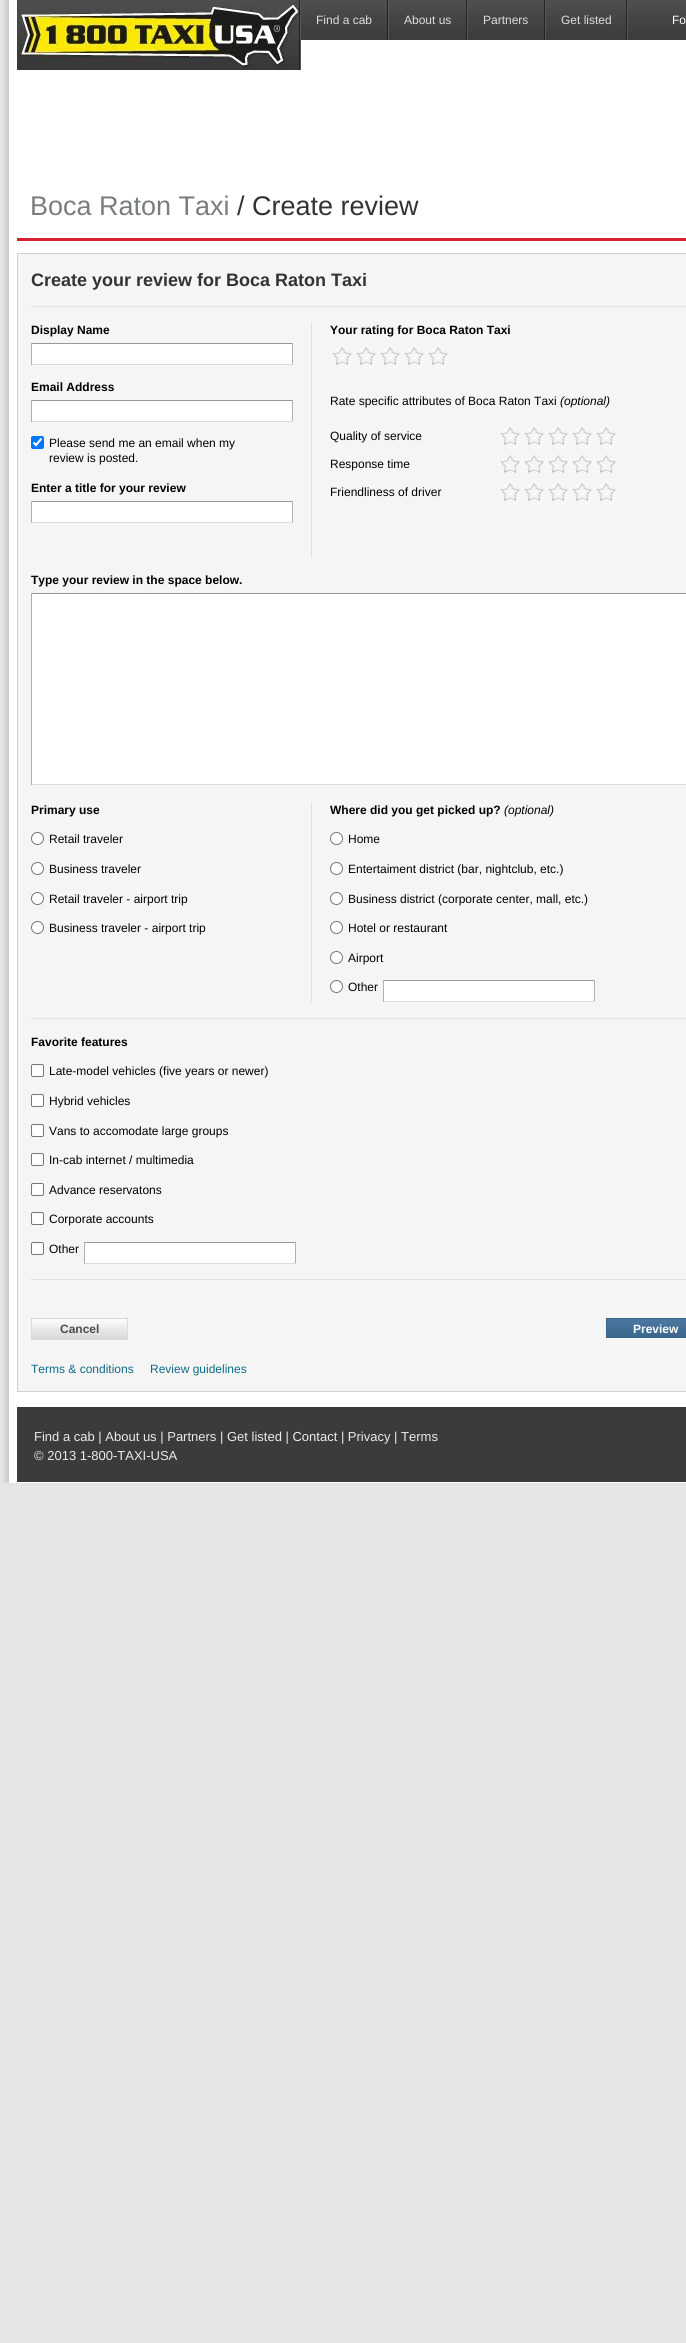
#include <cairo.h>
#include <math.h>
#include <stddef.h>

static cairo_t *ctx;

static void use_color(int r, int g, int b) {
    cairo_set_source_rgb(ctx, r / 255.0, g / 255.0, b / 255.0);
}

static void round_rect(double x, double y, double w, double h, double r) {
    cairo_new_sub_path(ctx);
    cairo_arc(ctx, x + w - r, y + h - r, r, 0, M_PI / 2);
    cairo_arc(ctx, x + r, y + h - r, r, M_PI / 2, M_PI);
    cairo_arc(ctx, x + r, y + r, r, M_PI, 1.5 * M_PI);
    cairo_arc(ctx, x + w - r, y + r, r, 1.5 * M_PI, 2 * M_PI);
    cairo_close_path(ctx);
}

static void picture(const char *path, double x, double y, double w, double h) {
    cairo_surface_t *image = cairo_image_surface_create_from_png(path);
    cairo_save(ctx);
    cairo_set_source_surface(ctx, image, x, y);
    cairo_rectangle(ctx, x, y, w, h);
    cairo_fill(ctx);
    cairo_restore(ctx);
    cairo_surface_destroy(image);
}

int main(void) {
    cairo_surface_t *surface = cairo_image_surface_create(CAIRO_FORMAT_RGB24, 686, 2343);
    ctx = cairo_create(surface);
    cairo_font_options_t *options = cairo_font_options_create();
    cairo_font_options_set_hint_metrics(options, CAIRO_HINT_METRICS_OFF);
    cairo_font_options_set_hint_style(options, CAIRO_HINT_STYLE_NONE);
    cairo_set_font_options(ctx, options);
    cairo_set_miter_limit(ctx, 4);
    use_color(229, 229, 229);
    cairo_paint(ctx);
    picture("img1.png", 3, 0, 683, 1483);
    picture("img2.png", 17, 0, 284, 70);
    picture("img3.png", 301, 0, 385, 40);
    cairo_select_font_face(ctx, "Liberation Sans", CAIRO_FONT_SLANT_NORMAL, CAIRO_FONT_WEIGHT_NORMAL);
    cairo_set_font_size(ctx, 12);
    use_color(221, 221, 221);
    cairo_move_to(ctx, 316, 24);
    cairo_show_text(ctx, "Find a cab");
    picture("img4.png", 387, 0, 2, 40);
    cairo_move_to(ctx, 404, 24);
    cairo_show_text(ctx, "About us");
    picture("img4.png", 466, 0, 2, 40);
    cairo_move_to(ctx, 483, 24);
    cairo_show_text(ctx, "Partners");
    picture("img4.png", 544, 0, 2, 40);
    cairo_move_to(ctx, 561, 24);
    cairo_show_text(ctx, "Get listed");
    picture("img4.png", 626, 0, 2, 40);
    use_color(255, 255, 255);
    cairo_move_to(ctx, 672, 24);
    cairo_show_text(ctx, "Fo");
    use_color(215, 32, 48);
    cairo_rectangle(ctx, 17, 238, 669, 3);
    cairo_fill(ctx);
    cairo_set_font_size(ctx, 27);
    use_color(122, 125, 127);
    cairo_move_to(ctx, 30, 215);
    cairo_show_text(ctx, "Boca Raton Taxi");
    use_color(51, 51, 51);
    cairo_move_to(ctx, 237, 215);
    cairo_show_text(ctx, "/ Create review");
    use_color(245, 245, 245);
    cairo_rectangle(ctx, 17.5, 253.5, 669, 1138);
    cairo_fill_preserve(ctx);
    use_color(208, 208, 208);
    cairo_set_line_width(ctx, 1);
    cairo_stroke(ctx);
    cairo_select_font_face(ctx, "Liberation Sans", CAIRO_FONT_SLANT_NORMAL, CAIRO_FONT_WEIGHT_BOLD);
    cairo_set_font_size(ctx, 18);
    use_color(51, 51, 51);
    cairo_move_to(ctx, 31, 286);
    cairo_show_text(ctx, "Create your review for Boca Raton Taxi");
    use_color(225, 225, 225);
    cairo_rectangle(ctx, 31, 306, 655, 1);
    cairo_fill(ctx);
    cairo_set_font_size(ctx, 12);
    use_color(0, 0, 0);
    cairo_move_to(ctx, 31, 334);
    cairo_show_text(ctx, "Display Name");
    use_color(255, 255, 255);
    cairo_rectangle(ctx, 32, 344, 260, 20);
    cairo_fill(ctx);
    use_color(153, 153, 153);
    cairo_rectangle(ctx, 31, 343, 262, 1);
    cairo_fill(ctx);
    use_color(170, 179, 179);
    cairo_rectangle(ctx, 292, 343, 1, 22);
    cairo_fill(ctx);
    use_color(213, 221, 221);
    cairo_rectangle(ctx, 31, 364, 262, 1);
    cairo_fill(ctx);
    use_color(170, 179, 179);
    cairo_rectangle(ctx, 31, 343, 1, 22);
    cairo_fill(ctx);
    use_color(0, 0, 0);
    cairo_move_to(ctx, 31, 391);
    cairo_show_text(ctx, "Email Address");
    use_color(255, 255, 255);
    cairo_rectangle(ctx, 32, 401, 260, 20);
    cairo_fill(ctx);
    use_color(153, 153, 153);
    cairo_rectangle(ctx, 31, 400, 262, 1);
    cairo_fill(ctx);
    use_color(170, 179, 179);
    cairo_rectangle(ctx, 292, 400, 1, 22);
    cairo_fill(ctx);
    use_color(213, 221, 221);
    cairo_rectangle(ctx, 31, 421, 262, 1);
    cairo_fill(ctx);
    use_color(170, 179, 179);
    cairo_rectangle(ctx, 31, 400, 1, 22);
    cairo_fill(ctx);
    use_color(0, 117, 255);
    round_rect(31, 436, 13, 13, 2);
    cairo_fill(ctx);
    cairo_new_path(ctx);
    cairo_move_to(ctx, 33.5, 442.5);
    cairo_line_to(ctx, 36, 445);
    cairo_line_to(ctx, 41.5, 438.5);
    use_color(255, 255, 255);
    cairo_set_line_width(ctx, 2.1);
    cairo_stroke(ctx);
    cairo_select_font_face(ctx, "Liberation Sans", CAIRO_FONT_SLANT_NORMAL, CAIRO_FONT_WEIGHT_NORMAL);
    use_color(0, 0, 0);
    cairo_move_to(ctx, 49, 447);
    cairo_show_text(ctx, "Please send me an email when my");
    cairo_move_to(ctx, 49, 462);
    cairo_show_text(ctx, "review is posted.");
    cairo_select_font_face(ctx, "Liberation Sans", CAIRO_FONT_SLANT_NORMAL, CAIRO_FONT_WEIGHT_BOLD);
    cairo_move_to(ctx, 31, 492);
    cairo_show_text(ctx, "Enter a title for your review");
    use_color(255, 255, 255);
    cairo_rectangle(ctx, 32, 502, 260, 20);
    cairo_fill(ctx);
    use_color(153, 153, 153);
    cairo_rectangle(ctx, 31, 501, 262, 1);
    cairo_fill(ctx);
    use_color(170, 179, 179);
    cairo_rectangle(ctx, 292, 501, 1, 22);
    cairo_fill(ctx);
    use_color(213, 221, 221);
    cairo_rectangle(ctx, 31, 522, 262, 1);
    cairo_fill(ctx);
    use_color(170, 179, 179);
    cairo_rectangle(ctx, 31, 501, 1, 22);
    cairo_fill(ctx);
    use_color(225, 225, 225);
    cairo_rectangle(ctx, 311, 323, 1, 235);
    cairo_fill(ctx);
    use_color(0, 0, 0);
    cairo_move_to(ctx, 330, 334);
    cairo_show_text(ctx, "Your rating for Boca Raton Taxi");
    picture("img5.png", 330, 346, 120, 20);
    cairo_select_font_face(ctx, "Liberation Sans", CAIRO_FONT_SLANT_NORMAL, CAIRO_FONT_WEIGHT_NORMAL);
    cairo_move_to(ctx, 330, 405);
    cairo_show_text(ctx, "Rate specific attributes of Boca Raton Taxi");
    cairo_select_font_face(ctx, "Liberation Sans", CAIRO_FONT_SLANT_ITALIC, CAIRO_FONT_WEIGHT_NORMAL);
    cairo_move_to(ctx, 560, 405);
    cairo_show_text(ctx, "(optional)");
    cairo_select_font_face(ctx, "Liberation Sans", CAIRO_FONT_SLANT_NORMAL, CAIRO_FONT_WEIGHT_NORMAL);
    cairo_move_to(ctx, 330, 440);
    cairo_show_text(ctx, "Quality of service");
    picture("img5.png", 498, 426, 120, 20);
    cairo_move_to(ctx, 330, 468);
    cairo_show_text(ctx, "Response time");
    picture("img5.png", 498, 454, 120, 20);
    cairo_move_to(ctx, 330, 496);
    cairo_show_text(ctx, "Friendliness of driver");
    picture("img5.png", 498, 482, 120, 20);
    cairo_select_font_face(ctx, "Liberation Sans", CAIRO_FONT_SLANT_NORMAL, CAIRO_FONT_WEIGHT_BOLD);
    cairo_move_to(ctx, 31, 584);
    cairo_show_text(ctx, "Type your review in the space below.");
    use_color(255, 255, 255);
    cairo_rectangle(ctx, 32, 594, 654, 190);
    cairo_fill(ctx);
    use_color(153, 153, 153);
    cairo_rectangle(ctx, 31, 593, 655, 1);
    cairo_fill(ctx);
    use_color(213, 221, 221);
    cairo_rectangle(ctx, 31, 784, 655, 1);
    cairo_fill(ctx);
    use_color(170, 179, 179);
    cairo_rectangle(ctx, 31, 593, 1, 192);
    cairo_fill(ctx);
    use_color(0, 0, 0);
    cairo_move_to(ctx, 31, 814);
    cairo_show_text(ctx, "Primary use");
    use_color(255, 255, 255);
    cairo_new_path(ctx);
    cairo_arc(ctx, 37.5, 838.5, 6, 0, 2 * M_PI);
    cairo_fill_preserve(ctx);
    use_color(118, 118, 118);
    cairo_set_line_width(ctx, 1);
    cairo_stroke(ctx);
    cairo_select_font_face(ctx, "Liberation Sans", CAIRO_FONT_SLANT_NORMAL, CAIRO_FONT_WEIGHT_NORMAL);
    use_color(0, 0, 0);
    cairo_move_to(ctx, 49, 843);
    cairo_show_text(ctx, "Retail traveler");
    use_color(255, 255, 255);
    cairo_new_path(ctx);
    cairo_arc(ctx, 37.5, 868.5, 6, 0, 2 * M_PI);
    cairo_fill_preserve(ctx);
    use_color(118, 118, 118);
    cairo_stroke(ctx);
    use_color(0, 0, 0);
    cairo_move_to(ctx, 49, 873);
    cairo_show_text(ctx, "Business traveler");
    use_color(255, 255, 255);
    cairo_new_path(ctx);
    cairo_arc(ctx, 37.5, 898.5, 6, 0, 2 * M_PI);
    cairo_fill_preserve(ctx);
    use_color(118, 118, 118);
    cairo_stroke(ctx);
    use_color(0, 0, 0);
    cairo_move_to(ctx, 49, 903);
    cairo_show_text(ctx, "Retail traveler - airport trip");
    use_color(255, 255, 255);
    cairo_new_path(ctx);
    cairo_arc(ctx, 37.5, 927.5, 6, 0, 2 * M_PI);
    cairo_fill_preserve(ctx);
    use_color(118, 118, 118);
    cairo_stroke(ctx);
    use_color(0, 0, 0);
    cairo_move_to(ctx, 49, 932);
    cairo_show_text(ctx, "Business traveler - airport trip");
    use_color(225, 225, 225);
    cairo_rectangle(ctx, 311, 803, 1, 200);
    cairo_fill(ctx);
    cairo_select_font_face(ctx, "Liberation Sans", CAIRO_FONT_SLANT_NORMAL, CAIRO_FONT_WEIGHT_BOLD);
    use_color(0, 0, 0);
    cairo_move_to(ctx, 330, 814);
    cairo_show_text(ctx, "Where did you get picked up?");
    cairo_select_font_face(ctx, "Liberation Sans", CAIRO_FONT_SLANT_ITALIC, CAIRO_FONT_WEIGHT_NORMAL);
    cairo_move_to(ctx, 504, 814);
    cairo_show_text(ctx, "(optional)");
    use_color(255, 255, 255);
    cairo_new_path(ctx);
    cairo_arc(ctx, 336.5, 838.5, 6, 0, 2 * M_PI);
    cairo_fill_preserve(ctx);
    use_color(118, 118, 118);
    cairo_stroke(ctx);
    cairo_select_font_face(ctx, "Liberation Sans", CAIRO_FONT_SLANT_NORMAL, CAIRO_FONT_WEIGHT_NORMAL);
    use_color(0, 0, 0);
    cairo_move_to(ctx, 348, 843);
    cairo_show_text(ctx, "Home");
    use_color(255, 255, 255);
    cairo_new_path(ctx);
    cairo_arc(ctx, 336.5, 868.5, 6, 0, 2 * M_PI);
    cairo_fill_preserve(ctx);
    use_color(118, 118, 118);
    cairo_stroke(ctx);
    use_color(0, 0, 0);
    cairo_move_to(ctx, 348, 873);
    cairo_show_text(ctx, "Entertaiment district (bar, nightclub, etc.)");
    use_color(255, 255, 255);
    cairo_new_path(ctx);
    cairo_arc(ctx, 336.5, 898.5, 6, 0, 2 * M_PI);
    cairo_fill_preserve(ctx);
    use_color(118, 118, 118);
    cairo_stroke(ctx);
    use_color(0, 0, 0);
    cairo_move_to(ctx, 348, 903);
    cairo_show_text(ctx, "Business district (corporate center, mall, etc.)");
    use_color(255, 255, 255);
    cairo_new_path(ctx);
    cairo_arc(ctx, 336.5, 927.5, 6, 0, 2 * M_PI);
    cairo_fill_preserve(ctx);
    use_color(118, 118, 118);
    cairo_stroke(ctx);
    use_color(0, 0, 0);
    cairo_move_to(ctx, 348, 932);
    cairo_show_text(ctx, "Hotel or restaurant");
    use_color(255, 255, 255);
    cairo_new_path(ctx);
    cairo_arc(ctx, 336.5, 957.5, 6, 0, 2 * M_PI);
    cairo_fill_preserve(ctx);
    use_color(118, 118, 118);
    cairo_stroke(ctx);
    use_color(0, 0, 0);
    cairo_move_to(ctx, 348, 962);
    cairo_show_text(ctx, "Airport");
    use_color(255, 255, 255);
    cairo_new_path(ctx);
    cairo_arc(ctx, 336.5, 986.5, 6, 0, 2 * M_PI);
    cairo_fill_preserve(ctx);
    use_color(118, 118, 118);
    cairo_stroke(ctx);
    use_color(0, 0, 0);
    cairo_move_to(ctx, 348, 991);
    cairo_show_text(ctx, "Other");
    use_color(255, 255, 255);
    cairo_rectangle(ctx, 384, 981, 210, 20);
    cairo_fill(ctx);
    use_color(153, 153, 153);
    cairo_rectangle(ctx, 383, 980, 212, 1);
    cairo_fill(ctx);
    use_color(170, 179, 179);
    cairo_rectangle(ctx, 594, 980, 1, 22);
    cairo_fill(ctx);
    use_color(213, 221, 221);
    cairo_rectangle(ctx, 383, 1001, 212, 1);
    cairo_fill(ctx);
    use_color(170, 179, 179);
    cairo_rectangle(ctx, 383, 980, 1, 22);
    cairo_fill(ctx);
    use_color(225, 225, 225);
    cairo_rectangle(ctx, 31, 1018, 655, 1);
    cairo_fill(ctx);
    cairo_select_font_face(ctx, "Liberation Sans", CAIRO_FONT_SLANT_NORMAL, CAIRO_FONT_WEIGHT_BOLD);
    use_color(0, 0, 0);
    cairo_move_to(ctx, 31, 1046);
    cairo_show_text(ctx, "Favorite features");
    use_color(255, 255, 255);
    round_rect(31.5, 1064.5, 12, 12, 1.5);
    cairo_fill_preserve(ctx);
    use_color(118, 118, 118);
    cairo_stroke(ctx);
    cairo_select_font_face(ctx, "Liberation Sans", CAIRO_FONT_SLANT_NORMAL, CAIRO_FONT_WEIGHT_NORMAL);
    use_color(0, 0, 0);
    cairo_move_to(ctx, 49, 1075);
    cairo_show_text(ctx, "Late-model vehicles (five years or newer)");
    use_color(255, 255, 255);
    round_rect(31.5, 1094.5, 12, 12, 1.5);
    cairo_fill_preserve(ctx);
    use_color(118, 118, 118);
    cairo_stroke(ctx);
    use_color(0, 0, 0);
    cairo_move_to(ctx, 49, 1105);
    cairo_show_text(ctx, "Hybrid vehicles");
    use_color(255, 255, 255);
    round_rect(31.5, 1124.5, 12, 12, 1.5);
    cairo_fill_preserve(ctx);
    use_color(118, 118, 118);
    cairo_stroke(ctx);
    use_color(0, 0, 0);
    cairo_move_to(ctx, 49, 1135);
    cairo_show_text(ctx, "Vans to accomodate large groups");
    use_color(255, 255, 255);
    round_rect(31.5, 1153.5, 12, 12, 1.5);
    cairo_fill_preserve(ctx);
    use_color(118, 118, 118);
    cairo_stroke(ctx);
    use_color(0, 0, 0);
    cairo_move_to(ctx, 49, 1164);
    cairo_show_text(ctx, "In-cab internet / multimedia");
    use_color(255, 255, 255);
    round_rect(31.5, 1183.5, 12, 12, 1.5);
    cairo_fill_preserve(ctx);
    use_color(118, 118, 118);
    cairo_stroke(ctx);
    use_color(0, 0, 0);
    cairo_move_to(ctx, 49, 1194);
    cairo_show_text(ctx, "Advance reservatons");
    use_color(255, 255, 255);
    round_rect(31.5, 1212.5, 12, 12, 1.5);
    cairo_fill_preserve(ctx);
    use_color(118, 118, 118);
    cairo_stroke(ctx);
    use_color(0, 0, 0);
    cairo_move_to(ctx, 49, 1223);
    cairo_show_text(ctx, "Corporate accounts");
    use_color(255, 255, 255);
    round_rect(31.5, 1242.5, 12, 12, 1.5);
    cairo_fill_preserve(ctx);
    use_color(118, 118, 118);
    cairo_stroke(ctx);
    use_color(0, 0, 0);
    cairo_move_to(ctx, 49, 1253);
    cairo_show_text(ctx, "Other");
    use_color(255, 255, 255);
    cairo_rectangle(ctx, 85, 1243, 210, 20);
    cairo_fill(ctx);
    use_color(153, 153, 153);
    cairo_rectangle(ctx, 84, 1242, 212, 1);
    cairo_fill(ctx);
    use_color(170, 179, 179);
    cairo_rectangle(ctx, 295, 1242, 1, 22);
    cairo_fill(ctx);
    use_color(213, 221, 221);
    cairo_rectangle(ctx, 84, 1263, 212, 1);
    cairo_fill(ctx);
    use_color(170, 179, 179);
    cairo_rectangle(ctx, 84, 1242, 1, 22);
    cairo_fill(ctx);
    use_color(225, 225, 225);
    cairo_rectangle(ctx, 31, 1279, 655, 1);
    cairo_fill(ctx);
    picture("img6.png", 32, 1319, 95, 20);
    cairo_rectangle(ctx, 31.5, 1318.5, 96, 21);
    use_color(218, 217, 217);
    cairo_stroke(ctx);
    cairo_select_font_face(ctx, "Liberation Sans", CAIRO_FONT_SLANT_NORMAL, CAIRO_FONT_WEIGHT_BOLD);
    use_color(78, 79, 79);
    cairo_move_to(ctx, 60, 1333);
    cairo_show_text(ctx, "Cancel");
    picture("img7.png", 607, 1319, 79, 18);
    cairo_rectangle(ctx, 606.5, 1318.5, 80, 19);
    use_color(57, 101, 139);
    cairo_stroke(ctx);
    use_color(255, 255, 255);
    cairo_move_to(ctx, 633, 1333);
    cairo_show_text(ctx, "Preview");
    cairo_select_font_face(ctx, "Liberation Sans", CAIRO_FONT_SLANT_NORMAL, CAIRO_FONT_WEIGHT_NORMAL);
    use_color(12, 107, 134);
    cairo_move_to(ctx, 31, 1373);
    cairo_show_text(ctx, "Terms & conditions");
    cairo_move_to(ctx, 150, 1373);
    cairo_show_text(ctx, "Review guidelines");
    use_color(59, 59, 59);
    cairo_rectangle(ctx, 17, 1407, 669, 75);
    cairo_fill(ctx);
    cairo_set_font_size(ctx, 13);
    use_color(235, 235, 235);
    cairo_move_to(ctx, 34, 1441);
    cairo_show_text(ctx, "Find a cab | About us | Partners | Get listed | Contact | Privacy | Terms");
    cairo_move_to(ctx, 34, 1460);
    cairo_show_text(ctx, "© 2013 1-800-TAXI-USA");
    cairo_surface_write_to_png(surface, "result.png");
    cairo_font_options_destroy(options);
    cairo_destroy(ctx);
    cairo_surface_destroy(surface);
    return 0;
}
